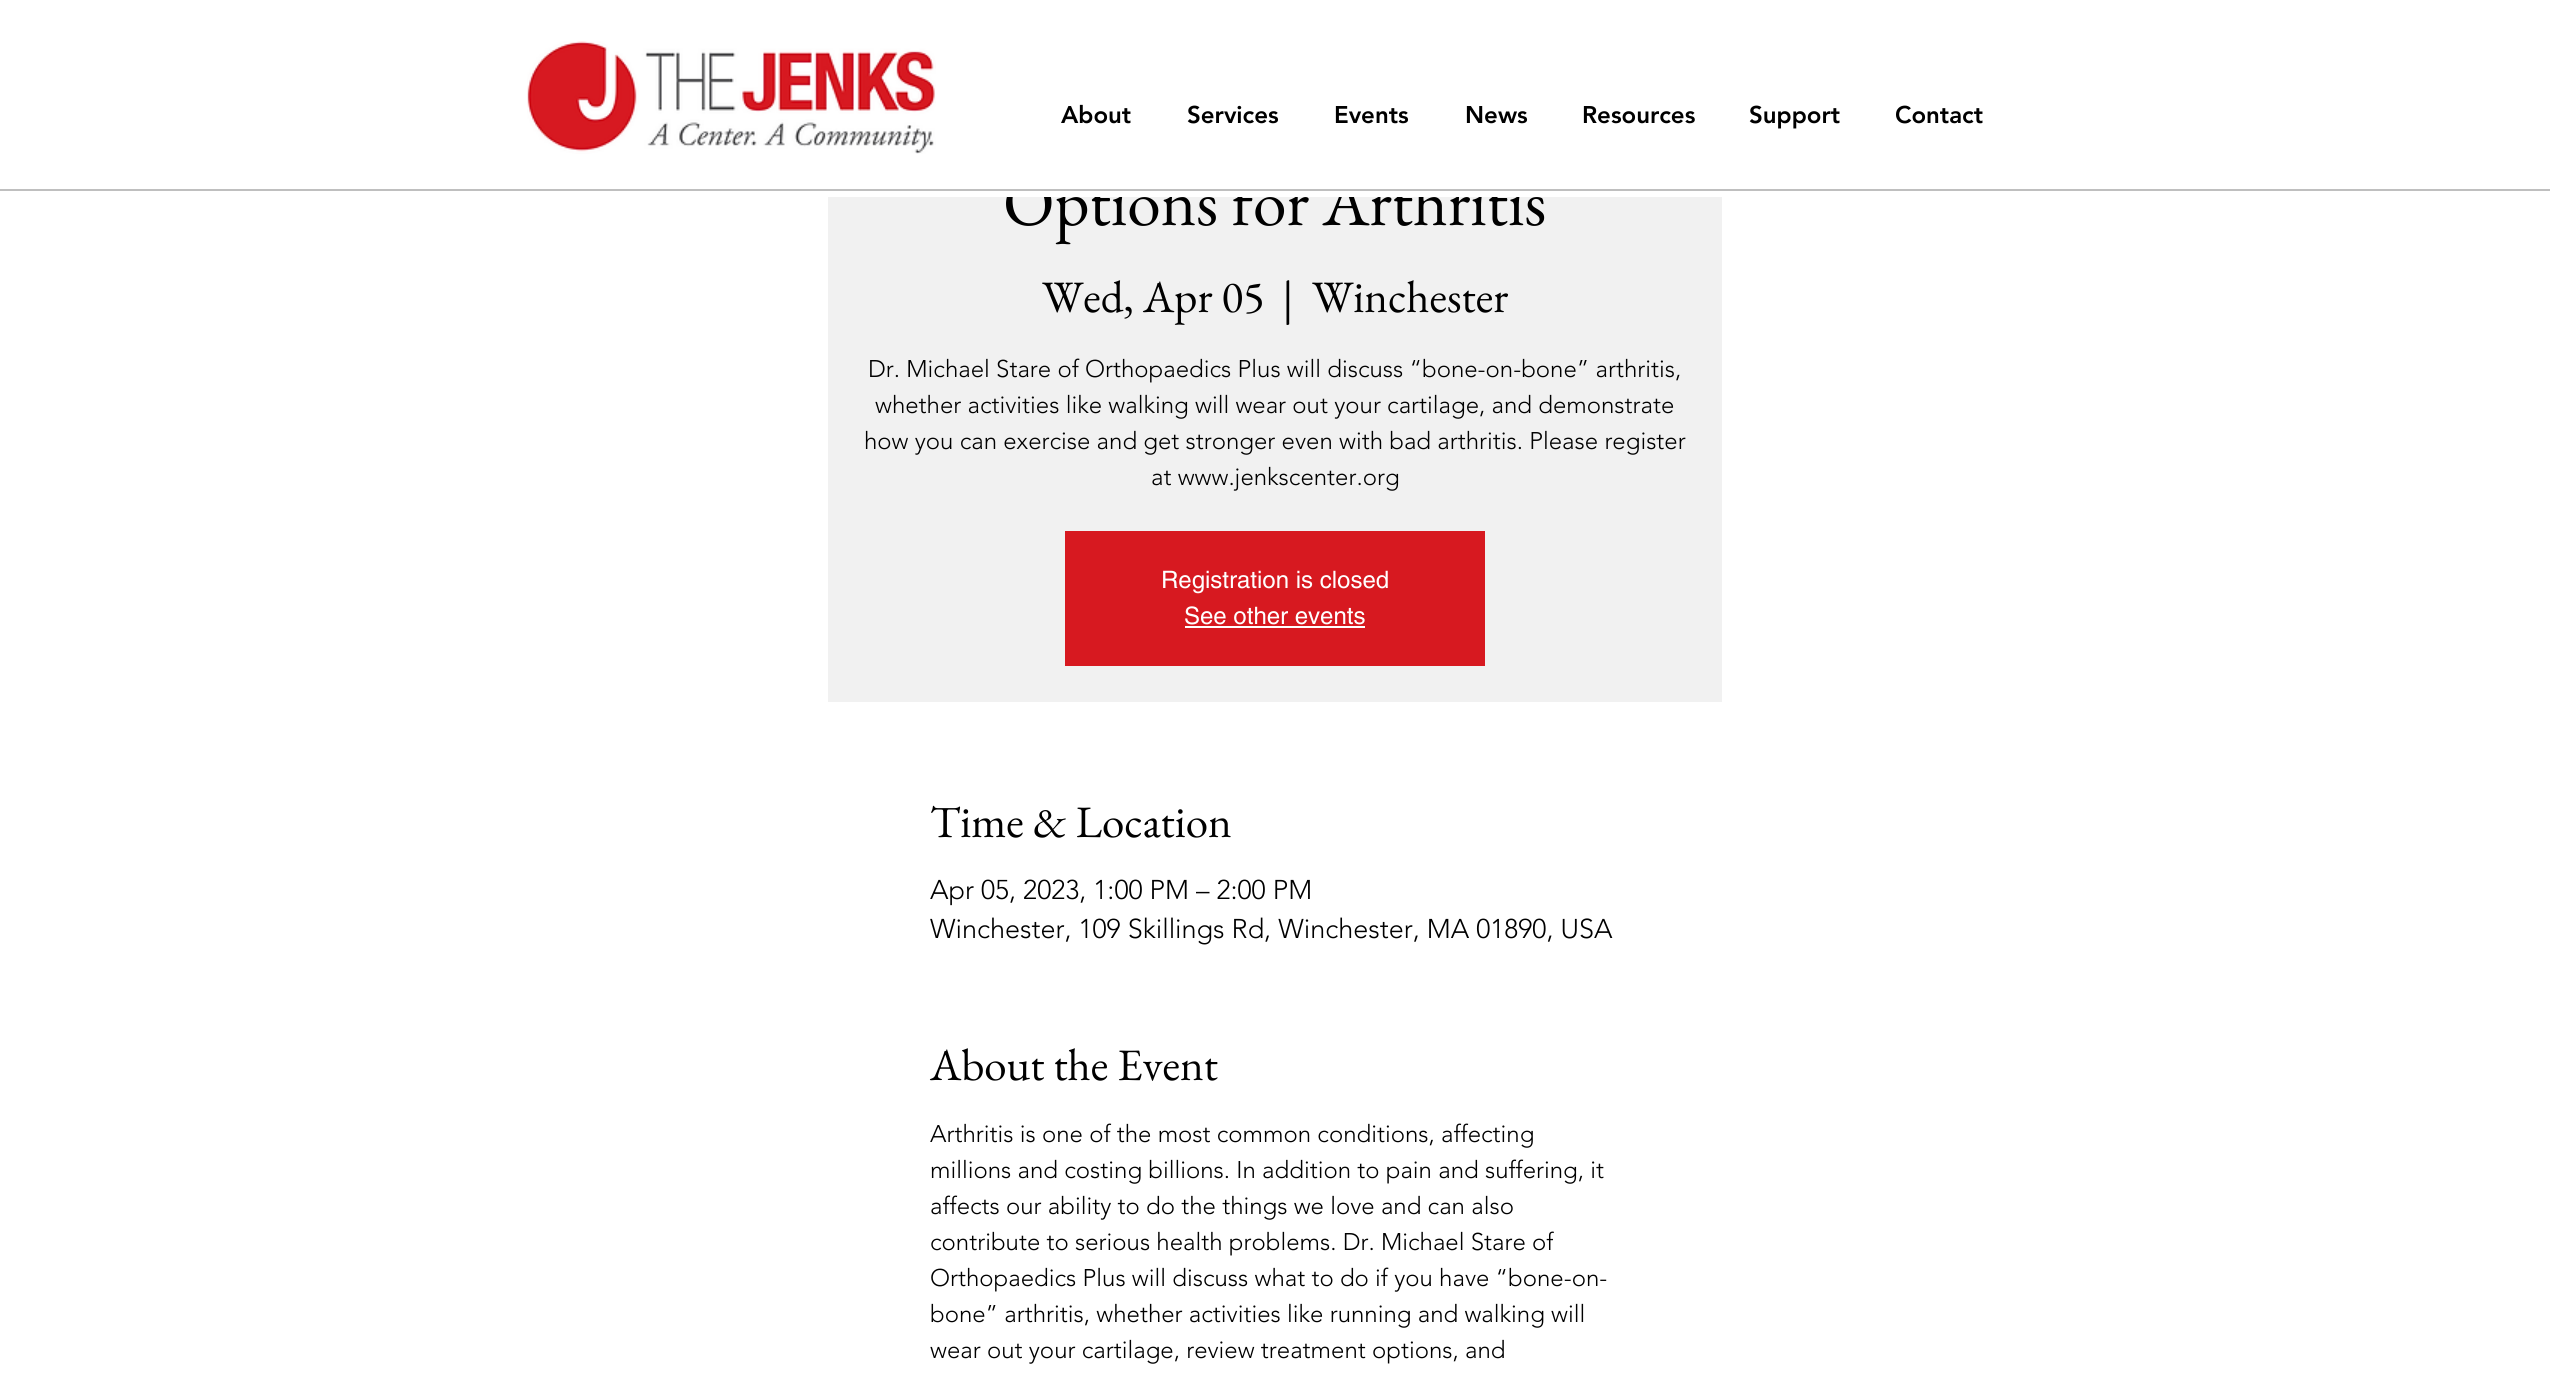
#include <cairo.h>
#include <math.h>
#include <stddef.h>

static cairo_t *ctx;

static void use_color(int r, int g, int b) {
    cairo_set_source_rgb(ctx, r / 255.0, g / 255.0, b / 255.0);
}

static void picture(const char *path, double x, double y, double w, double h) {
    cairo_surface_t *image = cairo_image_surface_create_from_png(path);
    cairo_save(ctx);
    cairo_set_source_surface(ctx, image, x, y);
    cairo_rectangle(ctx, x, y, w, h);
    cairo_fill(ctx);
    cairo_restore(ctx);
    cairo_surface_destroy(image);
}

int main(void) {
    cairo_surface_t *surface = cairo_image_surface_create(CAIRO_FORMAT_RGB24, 2550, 1387);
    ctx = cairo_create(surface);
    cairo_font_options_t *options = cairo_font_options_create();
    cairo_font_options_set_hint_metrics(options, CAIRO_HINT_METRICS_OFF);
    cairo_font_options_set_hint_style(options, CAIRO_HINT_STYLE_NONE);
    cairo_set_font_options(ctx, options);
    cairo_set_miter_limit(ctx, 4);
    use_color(255, 255, 255);
    cairo_paint(ctx);
    picture("img1.png", 527, 41, 409, 113);
    cairo_select_font_face(ctx, "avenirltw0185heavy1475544 Black", CAIRO_FONT_SLANT_NORMAL, CAIRO_FONT_WEIGHT_NORMAL);
    cairo_set_font_size(ctx, 24);
    use_color(0, 0, 0);
    cairo_move_to(ctx, 1061, 123);
    cairo_show_text(ctx, "About");
    cairo_move_to(ctx, 1187, 123);
    cairo_show_text(ctx, "Services");
    cairo_move_to(ctx, 1334, 123);
    cairo_show_text(ctx, "Events");
    cairo_move_to(ctx, 1465, 123);
    cairo_show_text(ctx, "News");
    cairo_move_to(ctx, 1582, 123);
    cairo_show_text(ctx, "Resources");
    cairo_move_to(ctx, 1749, 123);
    cairo_show_text(ctx, "Support");
    cairo_move_to(ctx, 1895, 123);
    cairo_show_text(ctx, "Contact");
    use_color(241, 241, 241);
    cairo_rectangle(ctx, 828, 197, 894, 505);
    cairo_fill(ctx);
    cairo_select_font_face(ctx, "EB Garamond", CAIRO_FONT_SLANT_NORMAL, CAIRO_FONT_WEIGHT_NORMAL);
    cairo_set_font_size(ctx, 67.5);
    use_color(0, 0, 0);
    cairo_move_to(ctx, 1003, 225);
    cairo_show_text(ctx, "Options for Arthritis");
    use_color(255, 255, 255);
    cairo_rectangle(ctx, 1007, 177, 514, 20);
    cairo_fill(ctx);
    use_color(191, 191, 191);
    cairo_rectangle(ctx, 0, 189, 2550, 2);
    cairo_fill(ctx);
    cairo_set_font_size(ctx, 45);
    use_color(0, 0, 0);
    cairo_move_to(ctx, 1042, 312);
    cairo_show_text(ctx, "Wed, Apr 05");
    cairo_move_to(ctx, 1282, 312);
    cairo_show_text(ctx, "|");
    cairo_move_to(ctx, 1312, 312);
    cairo_show_text(ctx, "Winchester");
    cairo_select_font_face(ctx, "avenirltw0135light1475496 Light", CAIRO_FONT_SLANT_NORMAL, CAIRO_FONT_WEIGHT_NORMAL);
    cairo_set_font_size(ctx, 24);
    cairo_move_to(ctx, 868, 377);
    cairo_show_text(ctx, "Dr. Michael Stare of Orthopaedics Plus will discuss “bone-on-bone” arthritis,");
    cairo_move_to(ctx, 875, 413);
    cairo_show_text(ctx, "whether activities like walking will wear out your cartilage, and demonstrate");
    cairo_move_to(ctx, 864, 449);
    cairo_show_text(ctx, "how you can exercise and get stronger even with bad arthritis. Please register");
    cairo_move_to(ctx, 1151, 485);
    cairo_show_text(ctx, "at www.jenkscenter.org");
    use_color(215, 25, 32);
    cairo_rectangle(ctx, 1065, 531, 420, 135);
    cairo_fill(ctx);
    cairo_select_font_face(ctx, "helvetica", CAIRO_FONT_SLANT_NORMAL, CAIRO_FONT_WEIGHT_NORMAL);
    use_color(255, 255, 255);
    cairo_move_to(ctx, 1161, 588);
    cairo_show_text(ctx, "Registration is closed");
    cairo_move_to(ctx, 1184, 624);
    cairo_show_text(ctx, "See other events");
    cairo_rectangle(ctx, 1185, 626, 180, 2);
    cairo_fill(ctx);
    cairo_select_font_face(ctx, "EB Garamond", CAIRO_FONT_SLANT_NORMAL, CAIRO_FONT_WEIGHT_NORMAL);
    cairo_set_font_size(ctx, 45);
    use_color(0, 0, 0);
    cairo_move_to(ctx, 930, 837);
    cairo_show_text(ctx, "Time & Location");
    cairo_select_font_face(ctx, "avenirltw0135light1475496 Light", CAIRO_FONT_SLANT_NORMAL, CAIRO_FONT_WEIGHT_NORMAL);
    cairo_set_font_size(ctx, 27);
    cairo_move_to(ctx, 930, 899);
    cairo_show_text(ctx, "Apr 05, 2023, 1:00 PM – 2:00 PM");
    cairo_move_to(ctx, 930, 938);
    cairo_show_text(ctx, "Winchester, 109 Skillings Rd, Winchester, MA 01890, USA");
    cairo_select_font_face(ctx, "EB Garamond", CAIRO_FONT_SLANT_NORMAL, CAIRO_FONT_WEIGHT_NORMAL);
    cairo_set_font_size(ctx, 45);
    cairo_move_to(ctx, 930, 1080);
    cairo_show_text(ctx, "About the Event");
    cairo_select_font_face(ctx, "avenirltw0135light1475496 Light", CAIRO_FONT_SLANT_NORMAL, CAIRO_FONT_WEIGHT_NORMAL);
    cairo_set_font_size(ctx, 24);
    cairo_move_to(ctx, 930, 1142);
    cairo_show_text(ctx, "Arthritis is one of the most common conditions, affecting");
    cairo_move_to(ctx, 930, 1178);
    cairo_show_text(ctx, "millions and costing billions. In addition to pain and suffering, it");
    cairo_move_to(ctx, 930, 1214);
    cairo_show_text(ctx, "affects our ability to do the things we love and can also");
    cairo_move_to(ctx, 930, 1250);
    cairo_show_text(ctx, "contribute to serious health problems. Dr. Michael Stare of");
    cairo_move_to(ctx, 930, 1286);
    cairo_show_text(ctx, "Orthopaedics Plus will discuss what to do if you have “bone-on-");
    cairo_move_to(ctx, 930, 1322);
    cairo_show_text(ctx, "bone” arthritis, whether activities like running and walking will");
    cairo_move_to(ctx, 930, 1358);
    cairo_show_text(ctx, "wear out your cartilage, review treatment options, and");
    cairo_surface_write_to_png(surface, "result.png");
    cairo_font_options_destroy(options);
    cairo_destroy(ctx);
    cairo_surface_destroy(surface);
    return 0;
}
